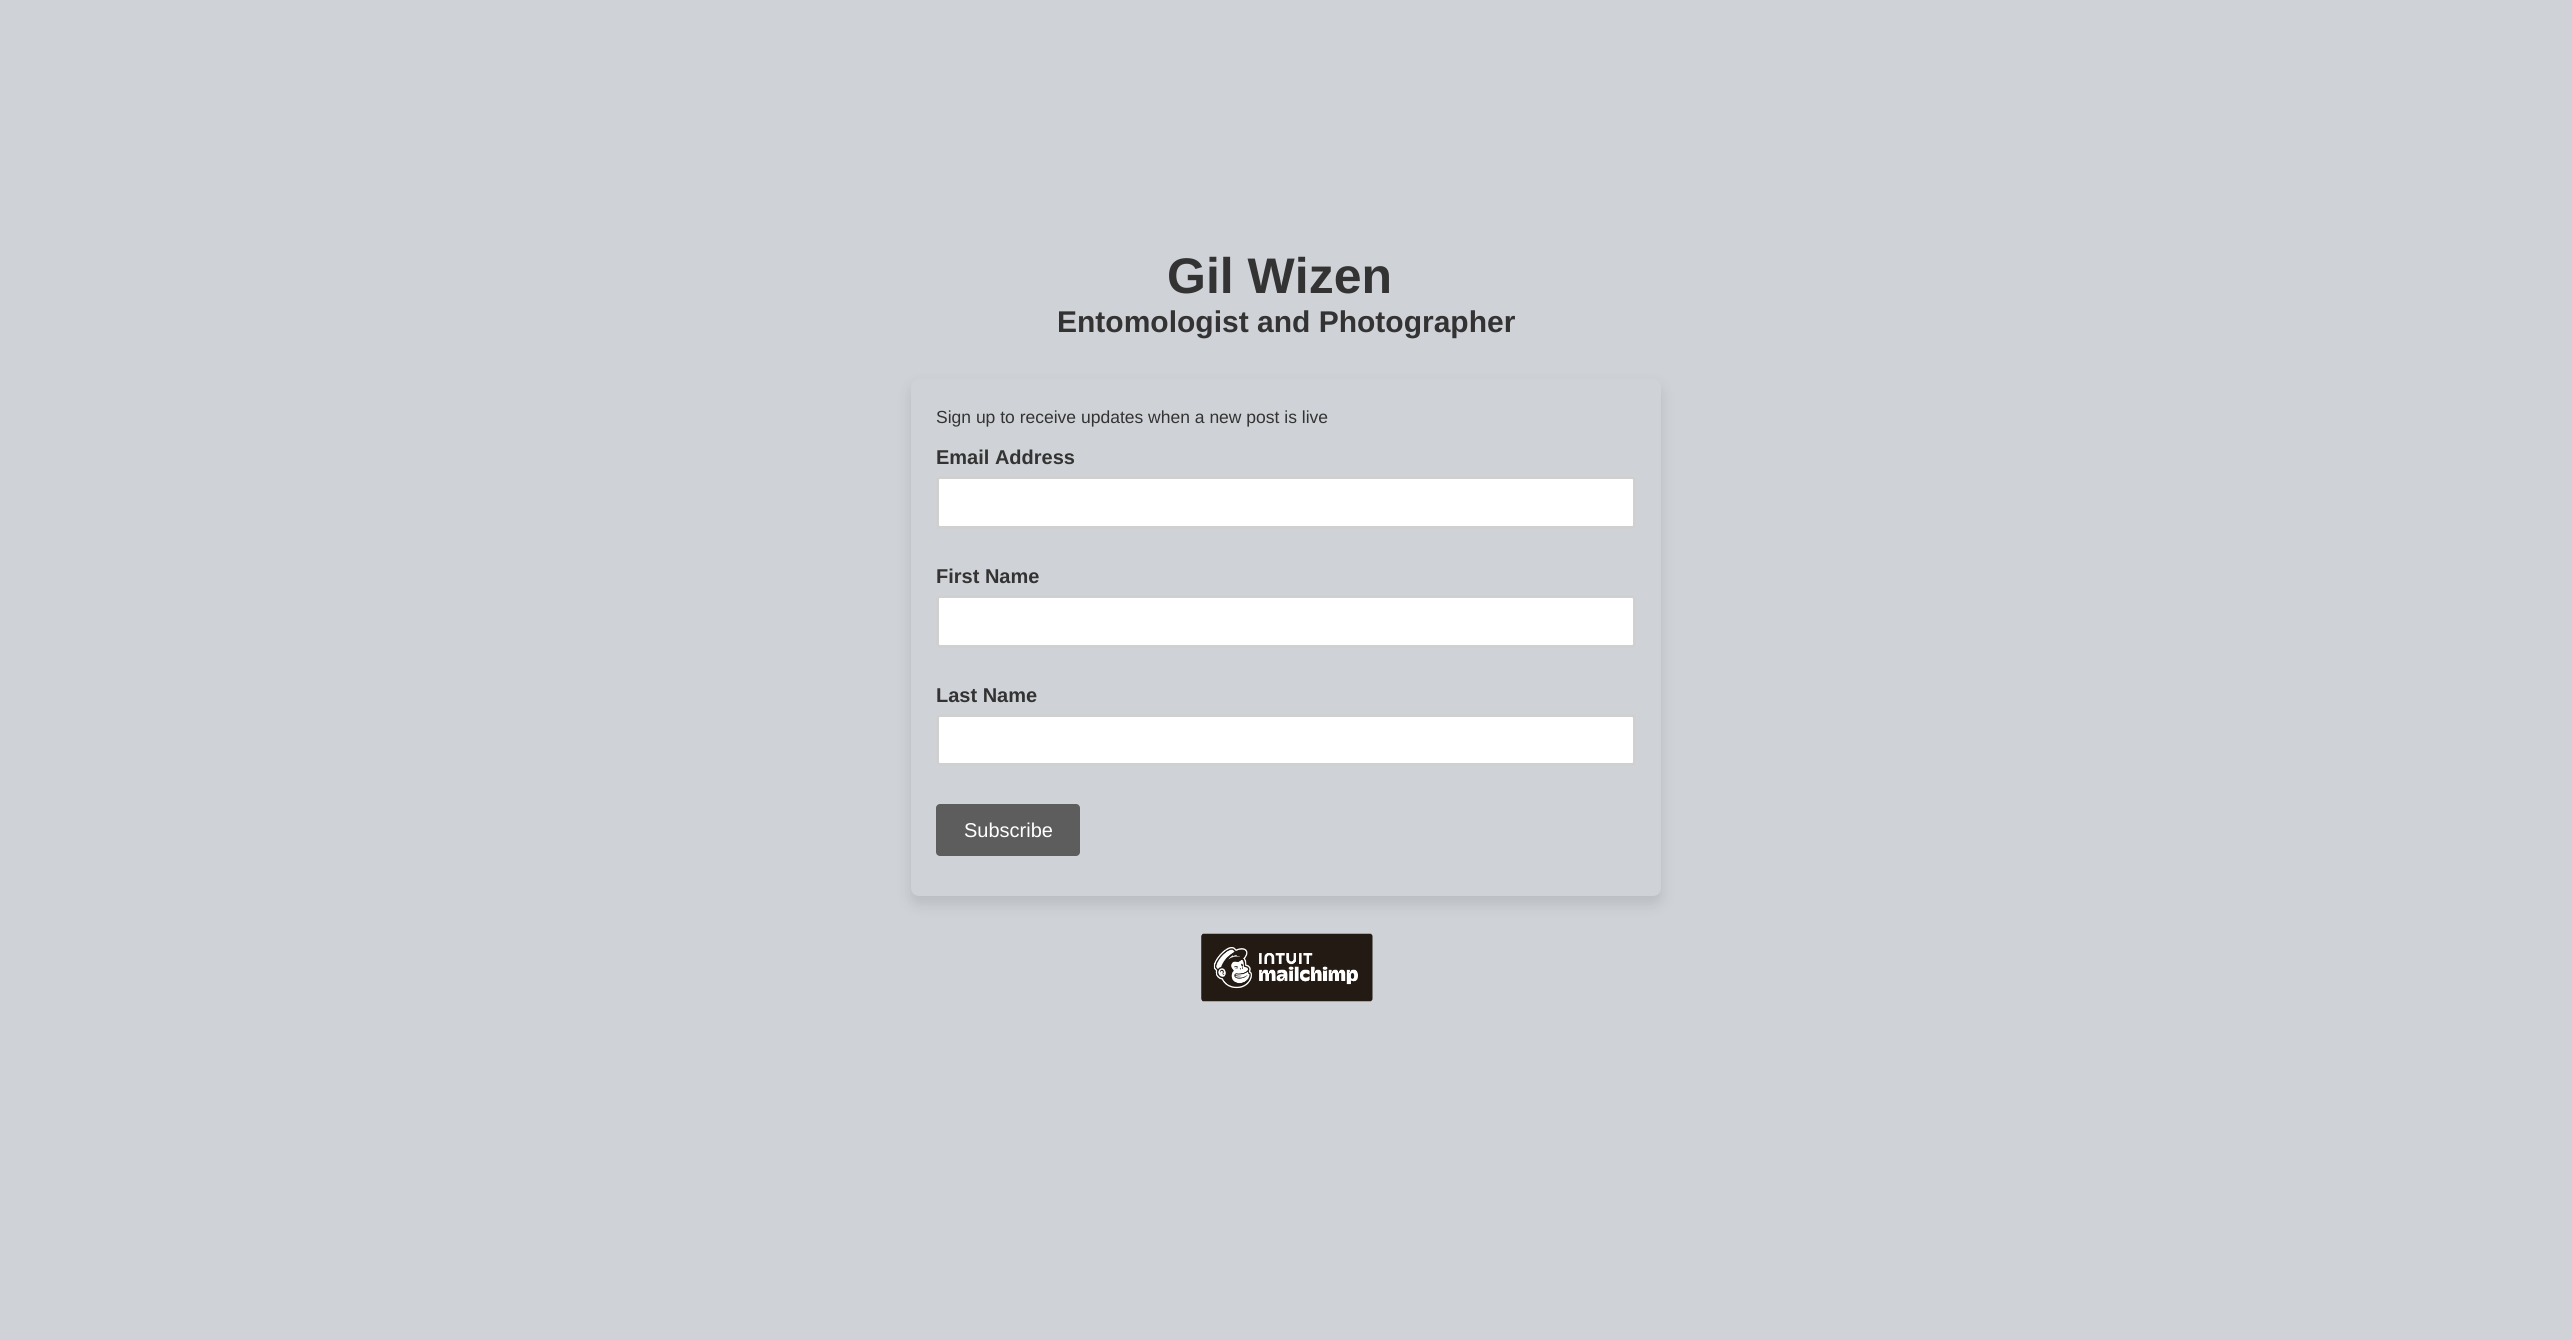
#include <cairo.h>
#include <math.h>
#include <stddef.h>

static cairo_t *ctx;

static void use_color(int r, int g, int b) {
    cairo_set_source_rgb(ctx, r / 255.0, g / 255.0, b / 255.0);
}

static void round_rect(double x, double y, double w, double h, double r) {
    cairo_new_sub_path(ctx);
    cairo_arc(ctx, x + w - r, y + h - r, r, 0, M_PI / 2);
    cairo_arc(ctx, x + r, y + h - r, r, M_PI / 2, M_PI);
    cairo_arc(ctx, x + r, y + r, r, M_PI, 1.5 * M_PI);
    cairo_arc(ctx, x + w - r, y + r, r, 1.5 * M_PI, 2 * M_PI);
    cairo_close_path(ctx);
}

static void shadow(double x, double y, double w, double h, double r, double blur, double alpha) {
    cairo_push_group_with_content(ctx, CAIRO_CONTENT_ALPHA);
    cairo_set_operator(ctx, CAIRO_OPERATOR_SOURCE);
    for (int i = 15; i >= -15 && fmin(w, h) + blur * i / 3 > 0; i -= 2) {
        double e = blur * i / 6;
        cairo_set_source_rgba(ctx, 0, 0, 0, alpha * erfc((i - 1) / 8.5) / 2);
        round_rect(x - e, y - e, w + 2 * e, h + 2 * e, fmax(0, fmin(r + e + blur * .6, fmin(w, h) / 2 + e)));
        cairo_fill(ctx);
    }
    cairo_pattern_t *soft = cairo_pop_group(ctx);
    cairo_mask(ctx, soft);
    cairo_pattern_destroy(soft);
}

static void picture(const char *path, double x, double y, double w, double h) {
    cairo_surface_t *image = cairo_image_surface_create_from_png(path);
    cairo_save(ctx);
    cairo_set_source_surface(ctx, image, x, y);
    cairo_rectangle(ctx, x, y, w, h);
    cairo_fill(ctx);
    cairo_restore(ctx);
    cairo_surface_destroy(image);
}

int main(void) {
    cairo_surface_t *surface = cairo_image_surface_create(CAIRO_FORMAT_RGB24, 2572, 1340);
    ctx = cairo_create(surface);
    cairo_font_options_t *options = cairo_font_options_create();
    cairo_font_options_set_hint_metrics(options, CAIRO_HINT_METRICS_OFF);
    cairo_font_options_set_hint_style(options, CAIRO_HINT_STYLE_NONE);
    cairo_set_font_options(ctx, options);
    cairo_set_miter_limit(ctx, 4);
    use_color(207, 210, 214);
    cairo_paint(ctx);
    cairo_select_font_face(ctx, "Liberation Sans", CAIRO_FONT_SLANT_NORMAL, CAIRO_FONT_WEIGHT_BOLD);
    cairo_set_font_size(ctx, 50);
    use_color(51, 51, 51);
    cairo_move_to(ctx, 1167, 293);
    cairo_show_text(ctx, "Gil Wizen");
    cairo_set_font_size(ctx, 30);
    cairo_move_to(ctx, 1057, 332);
    cairo_show_text(ctx, "Entomologist and Photographer");
    use_color(13, 18, 22);
    shadow(911, 386, 750, 518, 8, 7.5, 0.12);
    use_color(207, 210, 214);
    round_rect(911, 379, 750, 517, 8);
    cairo_fill(ctx);
    cairo_select_font_face(ctx, "Liberation Sans", CAIRO_FONT_SLANT_NORMAL, CAIRO_FONT_WEIGHT_NORMAL);
    cairo_set_font_size(ctx, 17.5);
    use_color(51, 51, 51);
    cairo_move_to(ctx, 936, 423);
    cairo_show_text(ctx, "Sign up to receive updates when a new post is live");
    cairo_select_font_face(ctx, "Liberation Sans", CAIRO_FONT_SLANT_NORMAL, CAIRO_FONT_WEIGHT_BOLD);
    cairo_set_font_size(ctx, 20);
    cairo_move_to(ctx, 936, 464);
    cairo_show_text(ctx, "Email Address");
    use_color(255, 255, 255);
    round_rect(937.5, 477.5, 697, 50, 2.5);
    cairo_fill_preserve(ctx);
    use_color(208, 208, 208);
    cairo_set_line_width(ctx, 3);
    cairo_stroke(ctx);
    use_color(51, 51, 51);
    cairo_move_to(ctx, 936, 583);
    cairo_show_text(ctx, "First Name");
    use_color(255, 255, 255);
    round_rect(937.5, 596.5, 697, 50, 2.5);
    cairo_fill_preserve(ctx);
    use_color(208, 208, 208);
    cairo_stroke(ctx);
    use_color(51, 51, 51);
    cairo_move_to(ctx, 936, 702);
    cairo_show_text(ctx, "Last Name");
    use_color(255, 255, 255);
    round_rect(937.5, 715.5, 697, 49, 2.5);
    cairo_fill_preserve(ctx);
    use_color(208, 208, 208);
    cairo_stroke(ctx);
    use_color(93, 93, 93);
    round_rect(936, 804, 144, 52, 4);
    cairo_fill(ctx);
    cairo_select_font_face(ctx, "Liberation Sans", CAIRO_FONT_SLANT_NORMAL, CAIRO_FONT_WEIGHT_NORMAL);
    use_color(255, 255, 255);
    cairo_move_to(ctx, 964, 837);
    cairo_show_text(ctx, "Subscribe");
    picture("img1.png", 1201, 933, 172, 69);
    cairo_surface_write_to_png(surface, "result.png");
    cairo_font_options_destroy(options);
    cairo_destroy(ctx);
    cairo_surface_destroy(surface);
    return 0;
}
